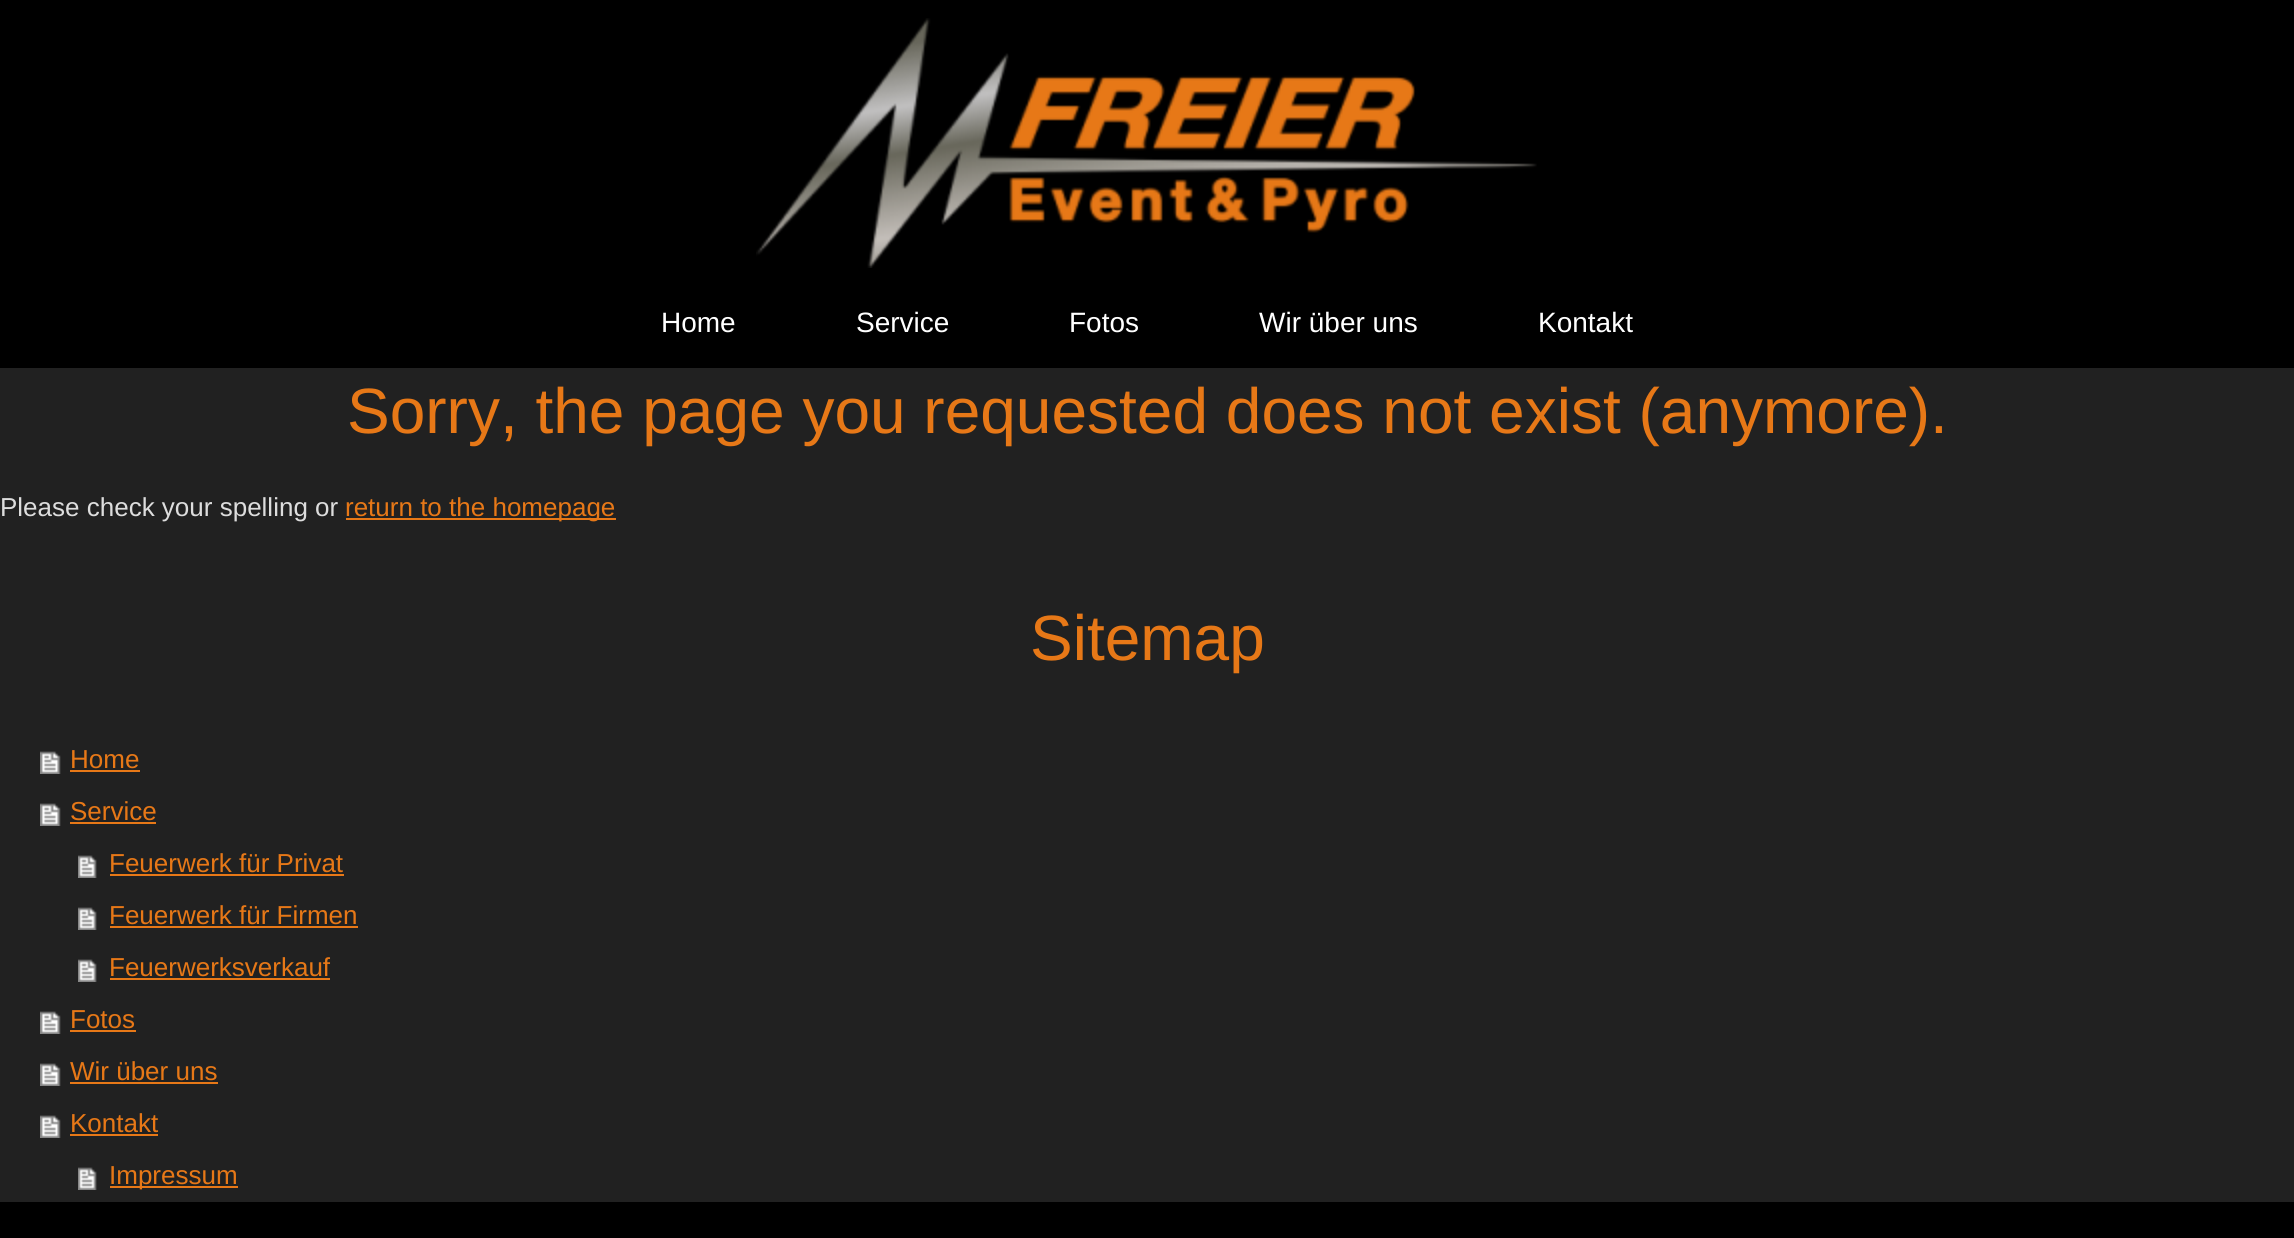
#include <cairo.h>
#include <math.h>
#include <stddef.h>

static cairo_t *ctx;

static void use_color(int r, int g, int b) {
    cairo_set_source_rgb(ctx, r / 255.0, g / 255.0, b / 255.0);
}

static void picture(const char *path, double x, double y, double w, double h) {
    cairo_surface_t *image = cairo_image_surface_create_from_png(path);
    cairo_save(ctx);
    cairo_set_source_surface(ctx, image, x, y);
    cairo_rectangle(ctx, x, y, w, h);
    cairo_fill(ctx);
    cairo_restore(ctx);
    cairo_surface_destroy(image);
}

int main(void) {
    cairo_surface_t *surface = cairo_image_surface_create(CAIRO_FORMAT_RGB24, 2294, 1238);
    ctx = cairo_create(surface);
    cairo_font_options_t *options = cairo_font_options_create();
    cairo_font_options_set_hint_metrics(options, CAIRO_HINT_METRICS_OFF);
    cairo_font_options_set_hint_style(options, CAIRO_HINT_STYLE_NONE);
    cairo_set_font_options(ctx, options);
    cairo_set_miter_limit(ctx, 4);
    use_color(0, 0, 0);
    cairo_paint(ctx);
    picture("img1.png", 756, 18, 781, 250);
    cairo_select_font_face(ctx, "Liberation Sans", CAIRO_FONT_SLANT_NORMAL, CAIRO_FONT_WEIGHT_NORMAL);
    cairo_set_font_size(ctx, 28);
    use_color(255, 255, 255);
    cairo_move_to(ctx, 661, 332);
    cairo_show_text(ctx, "Home");
    cairo_move_to(ctx, 856, 332);
    cairo_show_text(ctx, "Service");
    cairo_move_to(ctx, 1069, 332);
    cairo_show_text(ctx, "Fotos");
    cairo_move_to(ctx, 1259, 332);
    cairo_show_text(ctx, "Wir über uns");
    cairo_move_to(ctx, 1538, 332);
    cairo_show_text(ctx, "Kontakt");
    use_color(33, 33, 33);
    cairo_rectangle(ctx, 0, 368, 2294, 834);
    cairo_fill(ctx);
    cairo_set_font_size(ctx, 64);
    use_color(231, 120, 23);
    cairo_move_to(ctx, 347, 433);
    cairo_show_text(ctx, "Sorry, the page you requested does not exist (anymore).");
    cairo_set_font_size(ctx, 26);
    use_color(221, 221, 221);
    cairo_move_to(ctx, 0, 516);
    cairo_show_text(ctx, "Please check your spelling or");
    use_color(231, 120, 23);
    cairo_rectangle(ctx, 346, 518, 270, 2);
    cairo_fill(ctx);
    cairo_move_to(ctx, 345, 516);
    cairo_show_text(ctx, "return to the homepage");
    cairo_set_font_size(ctx, 64);
    cairo_move_to(ctx, 1030, 660);
    cairo_show_text(ctx, "Sitemap");
    picture("img2.png", 40, 751, 21, 23);
    cairo_set_font_size(ctx, 26);
    cairo_move_to(ctx, 70, 768);
    cairo_show_text(ctx, "Home");
    cairo_rectangle(ctx, 70, 770, 70, 2);
    cairo_fill(ctx);
    picture("img2.png", 40, 803, 21, 23);
    cairo_move_to(ctx, 70, 820);
    cairo_show_text(ctx, "Service");
    cairo_rectangle(ctx, 70, 822, 86, 2);
    cairo_fill(ctx);
    picture("img3.png", 78, 855, 19, 23);
    cairo_move_to(ctx, 109, 872);
    cairo_show_text(ctx, "Feuerwerk für Privat");
    cairo_rectangle(ctx, 110, 874, 234, 2);
    cairo_fill(ctx);
    picture("img3.png", 78, 907, 19, 23);
    cairo_move_to(ctx, 109, 924);
    cairo_show_text(ctx, "Feuerwerk für Firmen");
    cairo_rectangle(ctx, 110, 926, 248, 2);
    cairo_fill(ctx);
    picture("img3.png", 78, 959, 19, 23);
    cairo_move_to(ctx, 109, 976);
    cairo_show_text(ctx, "Feuerwerksverkauf");
    cairo_rectangle(ctx, 110, 978, 220, 2);
    cairo_fill(ctx);
    picture("img2.png", 40, 1011, 21, 23);
    cairo_move_to(ctx, 70, 1028);
    cairo_show_text(ctx, "Fotos");
    cairo_rectangle(ctx, 70, 1030, 66, 2);
    cairo_fill(ctx);
    picture("img2.png", 40, 1063, 21, 23);
    cairo_move_to(ctx, 70, 1080);
    cairo_show_text(ctx, "Wir über uns");
    cairo_rectangle(ctx, 70, 1082, 148, 2);
    cairo_fill(ctx);
    picture("img2.png", 40, 1115, 21, 23);
    cairo_move_to(ctx, 70, 1132);
    cairo_show_text(ctx, "Kontakt");
    cairo_rectangle(ctx, 70, 1134, 88, 2);
    cairo_fill(ctx);
    picture("img3.png", 78, 1167, 19, 23);
    cairo_rectangle(ctx, 110, 1186, 128, 2);
    cairo_fill(ctx);
    cairo_move_to(ctx, 109, 1184);
    cairo_show_text(ctx, "Impressum");
    cairo_surface_write_to_png(surface, "result.png");
    cairo_font_options_destroy(options);
    cairo_destroy(ctx);
    cairo_surface_destroy(surface);
    return 0;
}
